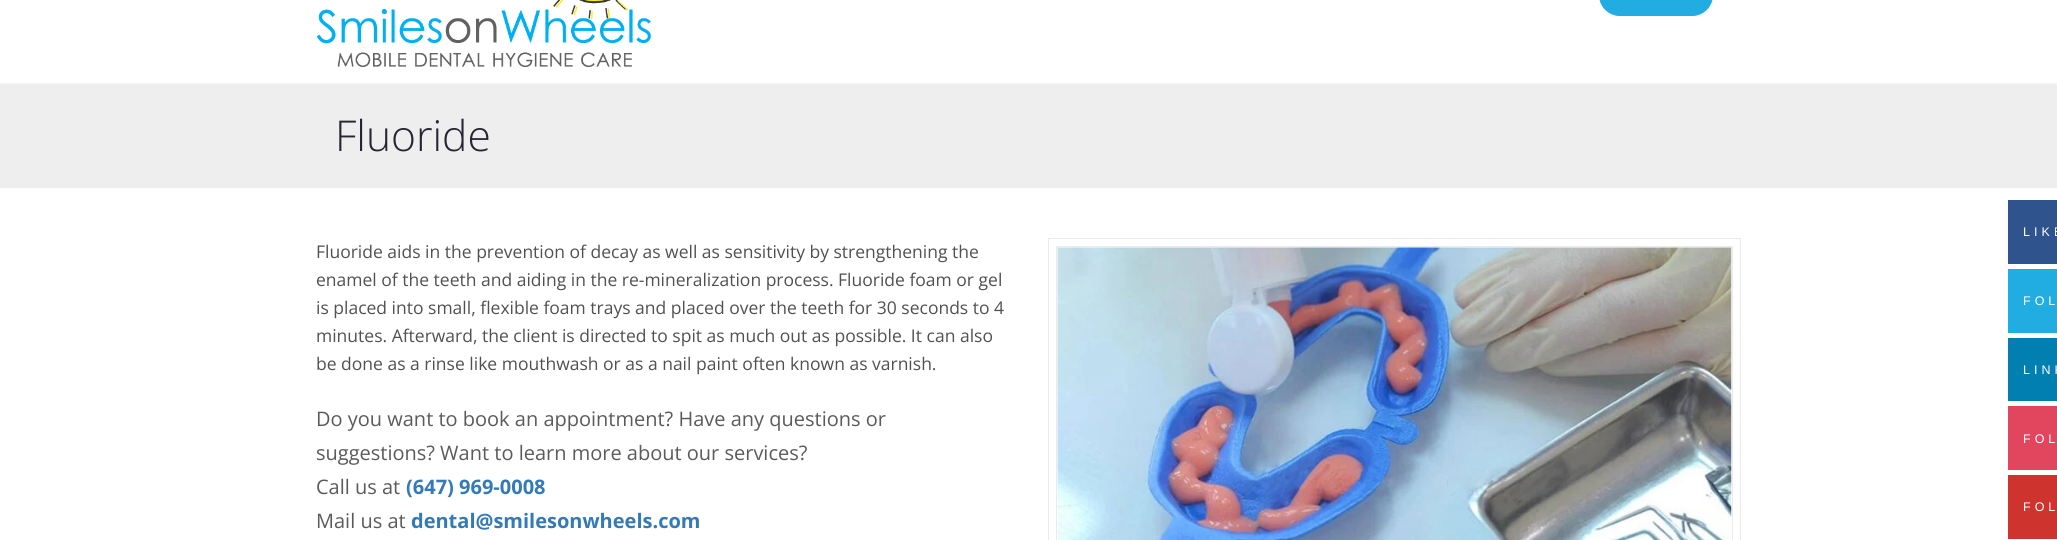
#include <cairo.h>
#include <math.h>
#include <stddef.h>

static cairo_t *ctx;

static void use_color(int r, int g, int b) {
    cairo_set_source_rgb(ctx, r / 255.0, g / 255.0, b / 255.0);
}

static void spaced_text(double x, double y, const char *s, double letter, double word) {
    cairo_move_to(ctx, x, y);
    while (*s) {
        char ch[5] = {0};
        int n = 0;
        do ch[n++] = *s++; while ((*s & 0xC0) == 0x80);
        cairo_show_text(ctx, ch);
        cairo_rel_move_to(ctx, letter + word * (*ch == ' '), 0);
    }
}

static void round_rect(double x, double y, double w, double h, double r) {
    cairo_new_sub_path(ctx);
    cairo_arc(ctx, x + w - r, y + h - r, r, 0, M_PI / 2);
    cairo_arc(ctx, x + r, y + h - r, r, M_PI / 2, M_PI);
    cairo_arc(ctx, x + r, y + r, r, M_PI, 1.5 * M_PI);
    cairo_arc(ctx, x + w - r, y + r, r, 1.5 * M_PI, 2 * M_PI);
    cairo_close_path(ctx);
}

static void picture(const char *path, double x, double y, double w, double h) {
    cairo_surface_t *image = cairo_image_surface_create_from_png(path);
    cairo_save(ctx);
    cairo_set_source_surface(ctx, image, x, y);
    cairo_rectangle(ctx, x, y, w, h);
    cairo_fill(ctx);
    cairo_restore(ctx);
    cairo_surface_destroy(image);
}

int main(void) {
    cairo_surface_t *surface = cairo_image_surface_create(CAIRO_FORMAT_RGB24, 2057, 540);
    ctx = cairo_create(surface);
    cairo_font_options_t *options = cairo_font_options_create();
    cairo_font_options_set_hint_metrics(options, CAIRO_HINT_METRICS_OFF);
    cairo_font_options_set_hint_style(options, CAIRO_HINT_STYLE_NONE);
    cairo_set_font_options(ctx, options);
    cairo_set_miter_limit(ctx, 4);
    use_color(255, 255, 255);
    cairo_paint(ctx);
    use_color(245, 245, 245);
    cairo_rectangle(ctx, 0, 83, 2057, 1);
    cairo_fill(ctx);
    picture("img1.png", 316, 0, 336, 68);
    use_color(33, 173, 225);
    round_rect(1599.5, -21.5, 113, 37, 20.5);
    cairo_fill_preserve(ctx);
    cairo_set_line_width(ctx, 1);
    cairo_stroke(ctx);
    use_color(238, 238, 238);
    cairo_rectangle(ctx, 0, 84, 2057, 104);
    cairo_fill(ctx);
    cairo_select_font_face(ctx, "Open Sans Light", CAIRO_FONT_SLANT_NORMAL, CAIRO_FONT_WEIGHT_NORMAL);
    cairo_set_font_size(ctx, 42.5);
    use_color(40, 36, 52);
    cairo_move_to(ctx, 335, 151);
    cairo_show_text(ctx, "Fluoride");
    cairo_select_font_face(ctx, "Open Sans", CAIRO_FONT_SLANT_NORMAL, CAIRO_FONT_WEIGHT_NORMAL);
    cairo_set_font_size(ctx, 17.5);
    use_color(81, 80, 82);
    cairo_move_to(ctx, 316, 258);
    cairo_show_text(ctx, "Fluoride aids in the prevention of decay as well as sensitivity by strengthening the");
    cairo_move_to(ctx, 316, 286);
    cairo_show_text(ctx, "enamel of the teeth and aiding in the re-mineralization process. Fluoride foam or gel");
    cairo_move_to(ctx, 316, 314);
    cairo_show_text(ctx, "is placed into small, flexible foam trays and placed over the teeth for 30 seconds to 4");
    cairo_move_to(ctx, 316, 342);
    cairo_show_text(ctx, "minutes. Afterward, the client is directed to spit as much out as possible. It can also");
    cairo_move_to(ctx, 316, 370);
    cairo_show_text(ctx, "be done as a rinse like mouthwash or as a nail paint often known as varnish.");
    cairo_set_font_size(ctx, 20);
    use_color(91, 91, 91);
    cairo_move_to(ctx, 316, 426);
    cairo_show_text(ctx, "Do you want to book an appointment? Have any questions or");
    cairo_move_to(ctx, 316, 460);
    cairo_show_text(ctx, "suggestions? Want to learn more about our services?");
    cairo_move_to(ctx, 316, 494);
    cairo_show_text(ctx, "Call us at");
    cairo_select_font_face(ctx, "Open Sans", CAIRO_FONT_SLANT_NORMAL, CAIRO_FONT_WEIGHT_BOLD);
    use_color(51, 122, 183);
    cairo_move_to(ctx, 406, 494);
    cairo_show_text(ctx, "(647) 969-0008");
    cairo_select_font_face(ctx, "Open Sans", CAIRO_FONT_SLANT_NORMAL, CAIRO_FONT_WEIGHT_NORMAL);
    use_color(91, 91, 91);
    cairo_move_to(ctx, 316, 528);
    cairo_show_text(ctx, "Mail us at");
    cairo_select_font_face(ctx, "Open Sans", CAIRO_FONT_SLANT_NORMAL, CAIRO_FONT_WEIGHT_BOLD);
    use_color(51, 122, 183);
    cairo_move_to(ctx, 411, 528);
    cairo_show_text(ctx, "dental@smilesonwheels.com");
    cairo_rectangle(ctx, 1048.5, 238.5, 692, 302);
    use_color(235, 235, 235);
    cairo_stroke(ctx);
    cairo_rectangle(ctx, 1056.5, 246.5, 676, 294);
    cairo_stroke(ctx);
    picture("img2.png", 1057, 247, 675, 293);
    use_color(47, 83, 141);
    cairo_rectangle(ctx, 2008, 200, 49, 64);
    cairo_fill(ctx);
    cairo_select_font_face(ctx, "Liberation Sans", CAIRO_FONT_SLANT_NORMAL, CAIRO_FONT_WEIGHT_NORMAL);
    cairo_set_font_size(ctx, 12.5);
    use_color(255, 255, 255);
    spaced_text(2023, 236, "LIKE", 4, 0);
    use_color(33, 173, 225);
    cairo_rectangle(ctx, 2008, 269, 49, 64);
    cairo_fill(ctx);
    use_color(255, 255, 255);
    spaced_text(2023, 305, "FOL", 4, 0);
    use_color(1, 127, 177);
    cairo_rectangle(ctx, 2008, 338, 49, 63);
    cairo_fill(ctx);
    use_color(255, 255, 255);
    spaced_text(2023, 374, "LINK", 4, 0);
    use_color(226, 70, 94);
    cairo_rectangle(ctx, 2008, 406, 49, 64);
    cairo_fill(ctx);
    use_color(255, 255, 255);
    spaced_text(2023, 443, "FOL", 4, 0);
    use_color(206, 51, 46);
    cairo_rectangle(ctx, 2008, 475, 49, 64);
    cairo_fill(ctx);
    use_color(255, 255, 255);
    spaced_text(2023, 511, "FOL", 4, 0);
    cairo_surface_write_to_png(surface, "result.png");
    cairo_font_options_destroy(options);
    cairo_destroy(ctx);
    cairo_surface_destroy(surface);
    return 0;
}
